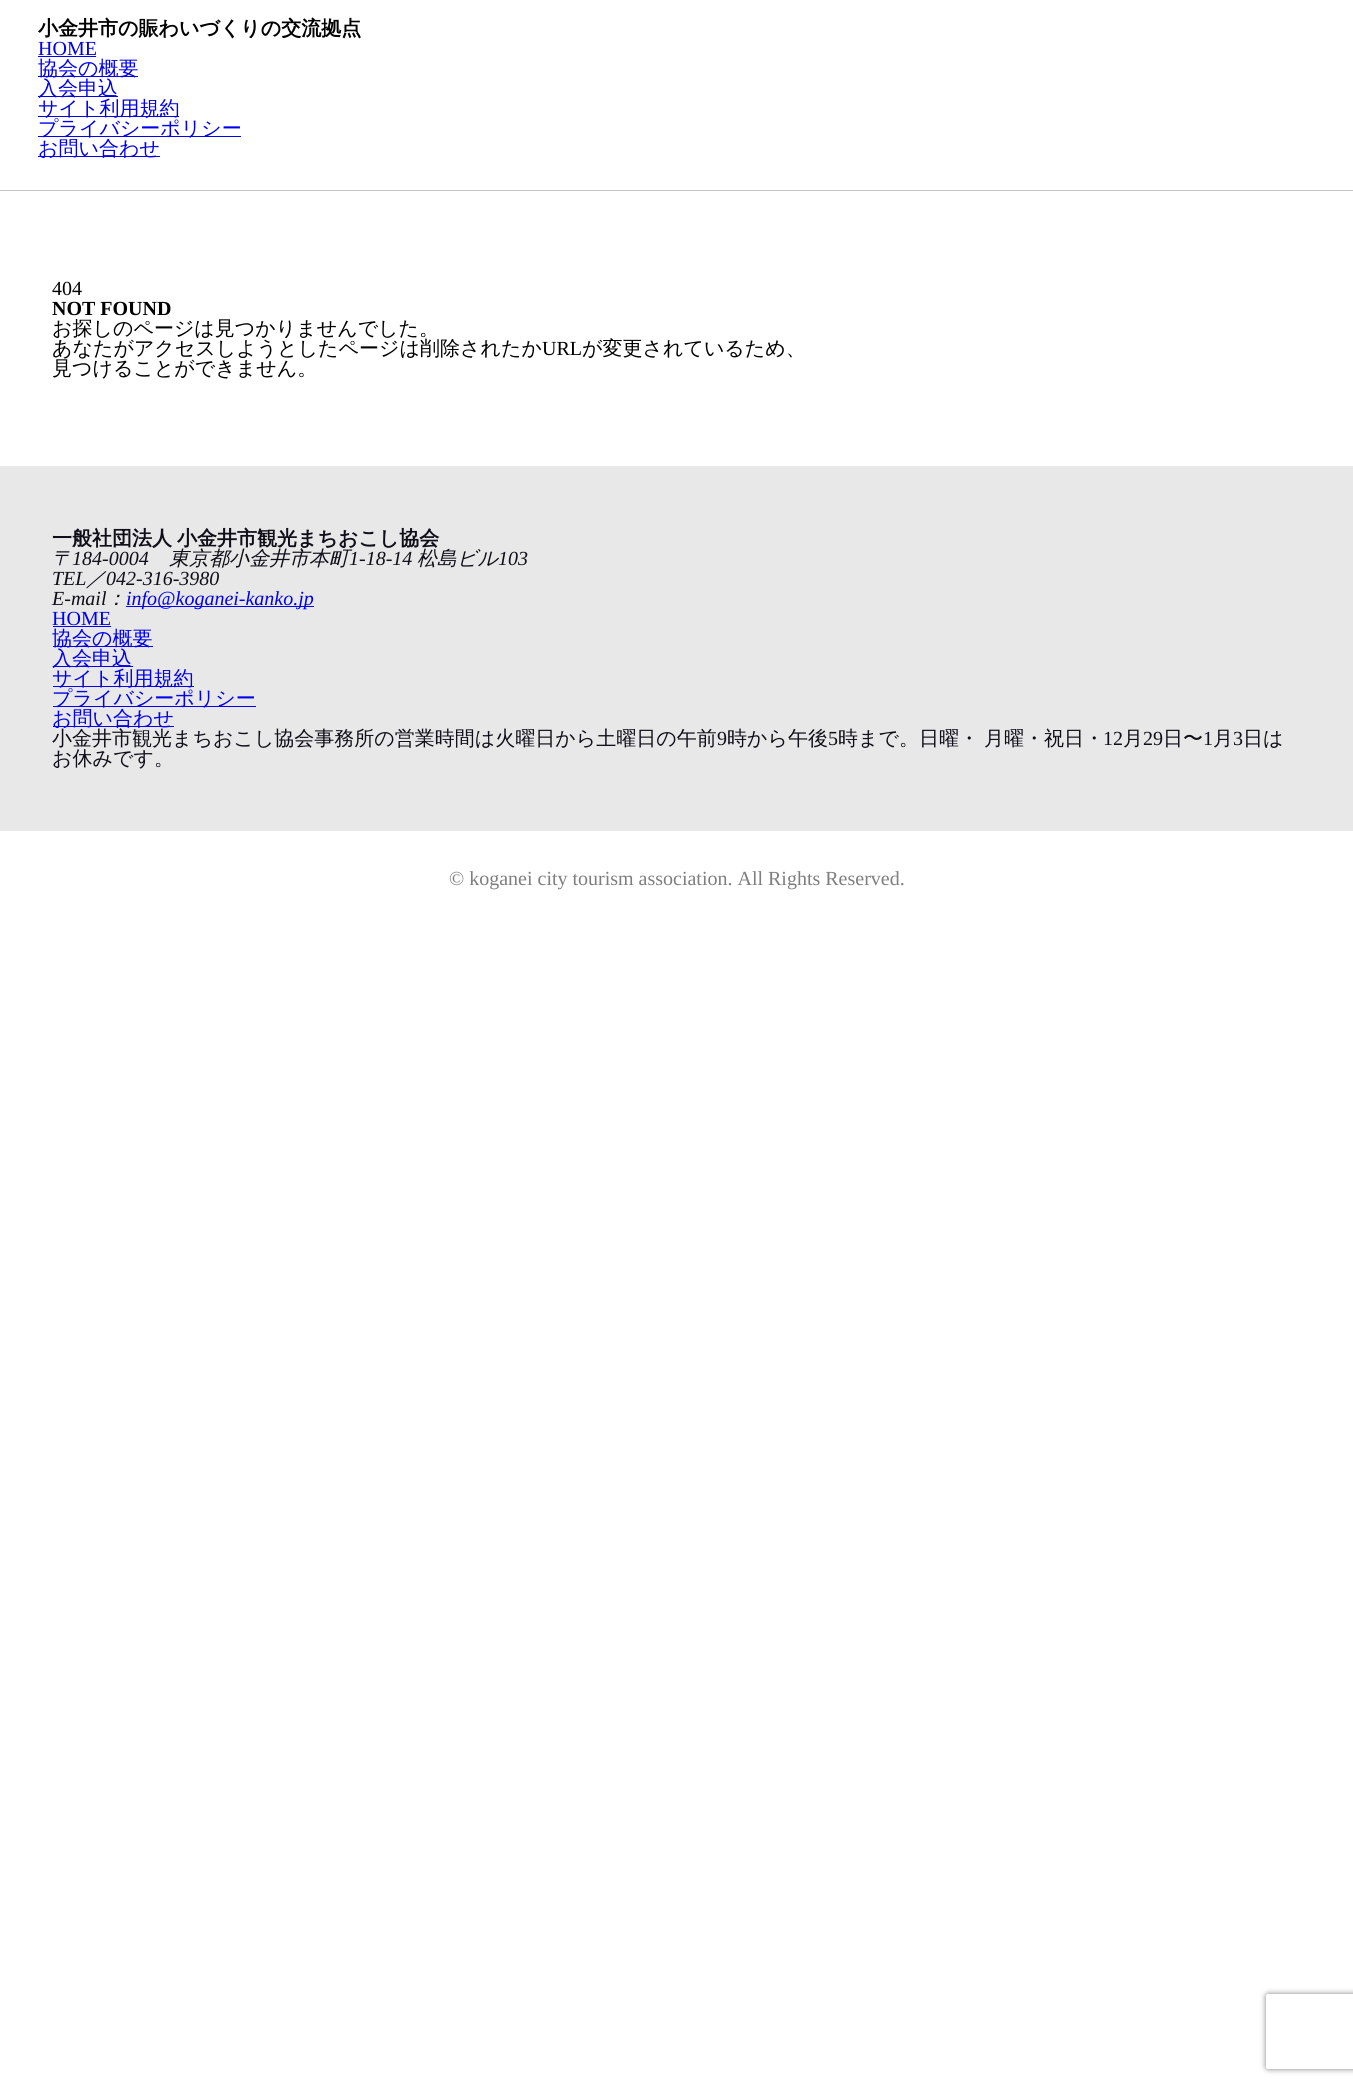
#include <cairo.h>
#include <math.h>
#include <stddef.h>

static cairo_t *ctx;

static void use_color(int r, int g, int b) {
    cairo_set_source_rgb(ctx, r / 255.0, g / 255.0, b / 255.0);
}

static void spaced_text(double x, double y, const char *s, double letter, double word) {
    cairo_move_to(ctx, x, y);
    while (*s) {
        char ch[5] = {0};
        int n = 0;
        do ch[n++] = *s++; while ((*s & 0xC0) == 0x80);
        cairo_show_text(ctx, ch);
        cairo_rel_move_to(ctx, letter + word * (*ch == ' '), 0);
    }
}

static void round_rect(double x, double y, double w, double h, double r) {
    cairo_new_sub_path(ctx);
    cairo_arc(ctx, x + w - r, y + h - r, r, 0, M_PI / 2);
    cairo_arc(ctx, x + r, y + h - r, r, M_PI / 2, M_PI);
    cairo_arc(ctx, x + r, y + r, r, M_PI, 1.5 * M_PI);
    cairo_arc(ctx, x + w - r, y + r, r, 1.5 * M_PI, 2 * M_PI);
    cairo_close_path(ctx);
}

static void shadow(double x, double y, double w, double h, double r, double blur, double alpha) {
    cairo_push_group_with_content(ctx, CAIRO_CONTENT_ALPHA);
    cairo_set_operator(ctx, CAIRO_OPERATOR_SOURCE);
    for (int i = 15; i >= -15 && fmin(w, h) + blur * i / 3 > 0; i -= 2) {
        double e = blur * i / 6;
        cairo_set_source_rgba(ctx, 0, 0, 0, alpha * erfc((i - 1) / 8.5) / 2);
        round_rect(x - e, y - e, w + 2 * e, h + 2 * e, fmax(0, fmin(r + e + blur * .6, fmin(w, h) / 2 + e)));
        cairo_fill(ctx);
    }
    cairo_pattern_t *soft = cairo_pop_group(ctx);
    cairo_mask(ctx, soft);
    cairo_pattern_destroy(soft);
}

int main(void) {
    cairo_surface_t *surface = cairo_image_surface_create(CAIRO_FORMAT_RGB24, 1353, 2086);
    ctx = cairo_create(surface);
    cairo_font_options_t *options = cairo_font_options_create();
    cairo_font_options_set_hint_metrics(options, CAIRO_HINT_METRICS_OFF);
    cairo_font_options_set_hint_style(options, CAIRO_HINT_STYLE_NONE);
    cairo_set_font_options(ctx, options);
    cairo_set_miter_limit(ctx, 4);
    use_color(255, 255, 255);
    cairo_paint(ctx);
    use_color(196, 196, 196);
    cairo_rectangle(ctx, 0, 190, 1353, 1);
    cairo_fill(ctx);
    cairo_select_font_face(ctx, "WenQuanYi Zen Hei", CAIRO_FONT_SLANT_NORMAL, CAIRO_FONT_WEIGHT_BOLD);
    cairo_set_font_size(ctx, 20);
    use_color(0, 0, 0);
    cairo_move_to(ctx, 38, 35);
    cairo_show_text(ctx, "小金井市の賑わいづくりの交流拠点");
    cairo_select_font_face(ctx, "Liberation Serif", CAIRO_FONT_SLANT_NORMAL, CAIRO_FONT_WEIGHT_NORMAL);
    use_color(0, 0, 238);
    cairo_move_to(ctx, 38, 55);
    cairo_show_text(ctx, "HOME");
    cairo_rectangle(ctx, 38, 56, 58, 1);
    cairo_fill(ctx);
    cairo_rectangle(ctx, 38, 76, 100, 1);
    cairo_fill(ctx);
    cairo_select_font_face(ctx, "WenQuanYi Zen Hei Medium", CAIRO_FONT_SLANT_NORMAL, CAIRO_FONT_WEIGHT_NORMAL);
    cairo_move_to(ctx, 38, 75);
    cairo_show_text(ctx, "協会の概要");
    cairo_rectangle(ctx, 38, 96, 80, 1);
    cairo_fill(ctx);
    cairo_move_to(ctx, 38, 95);
    cairo_show_text(ctx, "入会申込");
    cairo_rectangle(ctx, 38, 116, 141, 1);
    cairo_fill(ctx);
    cairo_move_to(ctx, 38, 115);
    cairo_show_text(ctx, "サイト利用規約");
    cairo_rectangle(ctx, 38, 136, 203, 1);
    cairo_fill(ctx);
    cairo_move_to(ctx, 38, 135);
    cairo_show_text(ctx, "プライバシーポリシー");
    cairo_rectangle(ctx, 38, 156, 122, 1);
    cairo_fill(ctx);
    cairo_move_to(ctx, 38, 155);
    cairo_show_text(ctx, "お問い合わせ");
    cairo_select_font_face(ctx, "Liberation Serif", CAIRO_FONT_SLANT_NORMAL, CAIRO_FONT_WEIGHT_NORMAL);
    use_color(0, 0, 0);
    cairo_move_to(ctx, 52, 295);
    cairo_show_text(ctx, "404");
    cairo_select_font_face(ctx, "Liberation Serif", CAIRO_FONT_SLANT_NORMAL, CAIRO_FONT_WEIGHT_BOLD);
    cairo_move_to(ctx, 52, 315);
    cairo_show_text(ctx, "NOT FOUND");
    cairo_select_font_face(ctx, "WenQuanYi Zen Hei Medium", CAIRO_FONT_SLANT_NORMAL, CAIRO_FONT_WEIGHT_NORMAL);
    cairo_move_to(ctx, 52, 335);
    cairo_show_text(ctx, "お探しのページは見つかりませんでした。");
    cairo_move_to(ctx, 52, 355);
    cairo_show_text(ctx, "あなたがアクセスしようとしたページは削除されたか");
    cairo_select_font_face(ctx, "Liberation Serif", CAIRO_FONT_SLANT_NORMAL, CAIRO_FONT_WEIGHT_NORMAL);
    cairo_move_to(ctx, 542, 355);
    cairo_show_text(ctx, "URL");
    cairo_select_font_face(ctx, "WenQuanYi Zen Hei Medium", CAIRO_FONT_SLANT_NORMAL, CAIRO_FONT_WEIGHT_NORMAL);
    cairo_move_to(ctx, 582, 355);
    cairo_show_text(ctx, "が変更されているため、");
    cairo_move_to(ctx, 52, 375);
    cairo_show_text(ctx, "見つけることができません。");
    use_color(232, 232, 232);
    cairo_rectangle(ctx, 0, 466, 1353, 365);
    cairo_fill(ctx);
    cairo_select_font_face(ctx, "WenQuanYi Zen Hei", CAIRO_FONT_SLANT_NORMAL, CAIRO_FONT_WEIGHT_BOLD);
    use_color(15, 15, 25);
    spaced_text(52, 545, "一般社団法人 小金井市観光まちおこし協会", 0, -1);
    cairo_select_font_face(ctx, "WenQuanYi Zen Hei Medium", CAIRO_FONT_SLANT_ITALIC, CAIRO_FONT_WEIGHT_NORMAL);
    cairo_move_to(ctx, 52, 565);
    cairo_show_text(ctx, "〒");
    cairo_select_font_face(ctx, "Liberation Serif", CAIRO_FONT_SLANT_ITALIC, CAIRO_FONT_WEIGHT_NORMAL);
    cairo_move_to(ctx, 72, 565);
    cairo_show_text(ctx, "184-0004");
    cairo_select_font_face(ctx, "WenQuanYi Zen Hei Medium", CAIRO_FONT_SLANT_ITALIC, CAIRO_FONT_WEIGHT_NORMAL);
    cairo_move_to(ctx, 169, 565);
    cairo_show_text(ctx, "東京都小金井市本町");
    cairo_select_font_face(ctx, "Liberation Serif", CAIRO_FONT_SLANT_ITALIC, CAIRO_FONT_WEIGHT_NORMAL);
    cairo_move_to(ctx, 349, 565);
    cairo_show_text(ctx, "1-18-14");
    cairo_select_font_face(ctx, "WenQuanYi Zen Hei Medium", CAIRO_FONT_SLANT_ITALIC, CAIRO_FONT_WEIGHT_NORMAL);
    cairo_move_to(ctx, 417, 565);
    cairo_show_text(ctx, "松島ビル");
    cairo_select_font_face(ctx, "Liberation Serif", CAIRO_FONT_SLANT_ITALIC, CAIRO_FONT_WEIGHT_NORMAL);
    cairo_move_to(ctx, 498, 565);
    cairo_show_text(ctx, "103");
    cairo_move_to(ctx, 52, 585);
    cairo_show_text(ctx, "TEL");
    cairo_select_font_face(ctx, "WenQuanYi Zen Hei Medium", CAIRO_FONT_SLANT_ITALIC, CAIRO_FONT_WEIGHT_NORMAL);
    cairo_move_to(ctx, 86, 585);
    cairo_show_text(ctx, "／");
    cairo_select_font_face(ctx, "Liberation Serif", CAIRO_FONT_SLANT_ITALIC, CAIRO_FONT_WEIGHT_NORMAL);
    cairo_move_to(ctx, 106, 585);
    cairo_show_text(ctx, "042-316-3980");
    cairo_move_to(ctx, 52, 605);
    cairo_show_text(ctx, "E-mail");
    cairo_select_font_face(ctx, "WenQuanYi Zen Hei Medium", CAIRO_FONT_SLANT_ITALIC, CAIRO_FONT_WEIGHT_NORMAL);
    cairo_move_to(ctx, 106, 605);
    cairo_show_text(ctx, "：");
    use_color(0, 0, 238);
    cairo_rectangle(ctx, 126, 606, 188, 1);
    cairo_fill(ctx);
    cairo_select_font_face(ctx, "Liberation Serif", CAIRO_FONT_SLANT_ITALIC, CAIRO_FONT_WEIGHT_NORMAL);
    cairo_move_to(ctx, 126, 605);
    cairo_show_text(ctx, "info@koganei-kanko.jp");
    cairo_select_font_face(ctx, "Liberation Serif", CAIRO_FONT_SLANT_NORMAL, CAIRO_FONT_WEIGHT_NORMAL);
    cairo_move_to(ctx, 52, 625);
    cairo_show_text(ctx, "HOME");
    cairo_rectangle(ctx, 53, 626, 58, 1);
    cairo_fill(ctx);
    cairo_rectangle(ctx, 53, 646, 100, 1);
    cairo_fill(ctx);
    cairo_select_font_face(ctx, "WenQuanYi Zen Hei Medium", CAIRO_FONT_SLANT_NORMAL, CAIRO_FONT_WEIGHT_NORMAL);
    cairo_move_to(ctx, 52, 645);
    cairo_show_text(ctx, "協会の概要");
    cairo_rectangle(ctx, 53, 666, 80, 1);
    cairo_fill(ctx);
    cairo_move_to(ctx, 52, 665);
    cairo_show_text(ctx, "入会申込");
    cairo_rectangle(ctx, 53, 686, 141, 1);
    cairo_fill(ctx);
    cairo_move_to(ctx, 52, 685);
    cairo_show_text(ctx, "サイト利用規約");
    cairo_rectangle(ctx, 53, 706, 203, 1);
    cairo_fill(ctx);
    cairo_move_to(ctx, 52, 705);
    cairo_show_text(ctx, "プライバシーポリシー");
    cairo_rectangle(ctx, 53, 726, 121, 1);
    cairo_fill(ctx);
    cairo_move_to(ctx, 52, 725);
    cairo_show_text(ctx, "お問い合わせ");
    use_color(15, 15, 25);
    cairo_move_to(ctx, 52, 745);
    cairo_show_text(ctx, "小金井市観光まちおこし協会事務所の営業時間は火曜日から土曜日の午前");
    cairo_select_font_face(ctx, "Liberation Serif", CAIRO_FONT_SLANT_NORMAL, CAIRO_FONT_WEIGHT_NORMAL);
    cairo_move_to(ctx, 717, 745);
    cairo_show_text(ctx, "9");
    cairo_select_font_face(ctx, "WenQuanYi Zen Hei Medium", CAIRO_FONT_SLANT_NORMAL, CAIRO_FONT_WEIGHT_NORMAL);
    cairo_move_to(ctx, 727, 745);
    cairo_show_text(ctx, "時から午後");
    cairo_select_font_face(ctx, "Liberation Serif", CAIRO_FONT_SLANT_NORMAL, CAIRO_FONT_WEIGHT_NORMAL);
    cairo_move_to(ctx, 828, 745);
    cairo_show_text(ctx, "5");
    cairo_select_font_face(ctx, "WenQuanYi Zen Hei Medium", CAIRO_FONT_SLANT_NORMAL, CAIRO_FONT_WEIGHT_NORMAL);
    spaced_text(838, 745, "時まで。日曜・ 月曜・祝日・", 0, -1);
    cairo_select_font_face(ctx, "Liberation Serif", CAIRO_FONT_SLANT_NORMAL, CAIRO_FONT_WEIGHT_NORMAL);
    cairo_move_to(ctx, 1103, 745);
    cairo_show_text(ctx, "12");
    cairo_select_font_face(ctx, "WenQuanYi Zen Hei Medium", CAIRO_FONT_SLANT_NORMAL, CAIRO_FONT_WEIGHT_NORMAL);
    cairo_move_to(ctx, 1123, 745);
    cairo_show_text(ctx, "月");
    cairo_select_font_face(ctx, "Liberation Serif", CAIRO_FONT_SLANT_NORMAL, CAIRO_FONT_WEIGHT_NORMAL);
    cairo_move_to(ctx, 1143, 745);
    cairo_show_text(ctx, "29");
    cairo_select_font_face(ctx, "WenQuanYi Zen Hei Medium", CAIRO_FONT_SLANT_NORMAL, CAIRO_FONT_WEIGHT_NORMAL);
    cairo_move_to(ctx, 1163, 745);
    cairo_show_text(ctx, "日〜");
    cairo_select_font_face(ctx, "Liberation Serif", CAIRO_FONT_SLANT_NORMAL, CAIRO_FONT_WEIGHT_NORMAL);
    cairo_move_to(ctx, 1203, 745);
    cairo_show_text(ctx, "1");
    cairo_select_font_face(ctx, "WenQuanYi Zen Hei Medium", CAIRO_FONT_SLANT_NORMAL, CAIRO_FONT_WEIGHT_NORMAL);
    cairo_move_to(ctx, 1213, 745);
    cairo_show_text(ctx, "月");
    cairo_select_font_face(ctx, "Liberation Serif", CAIRO_FONT_SLANT_NORMAL, CAIRO_FONT_WEIGHT_NORMAL);
    cairo_move_to(ctx, 1233, 745);
    cairo_show_text(ctx, "3");
    cairo_select_font_face(ctx, "WenQuanYi Zen Hei Medium", CAIRO_FONT_SLANT_NORMAL, CAIRO_FONT_WEIGHT_NORMAL);
    cairo_move_to(ctx, 1243, 745);
    cairo_show_text(ctx, "日は");
    cairo_move_to(ctx, 52, 765);
    cairo_show_text(ctx, "お休みです。");
    cairo_select_font_face(ctx, "Liberation Serif", CAIRO_FONT_SLANT_NORMAL, CAIRO_FONT_WEIGHT_NORMAL);
    use_color(126, 126, 126);
    cairo_move_to(ctx, 449, 885);
    cairo_show_text(ctx, "© koganei city tourism association. All Rights Reserved.");
    cairo_save(ctx);
    cairo_set_fill_rule(ctx, CAIRO_FILL_RULE_EVEN_ODD);
    cairo_new_path(ctx);
    cairo_move_to(ctx, 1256, 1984);
    cairo_line_to(ctx, 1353, 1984);
    cairo_line_to(ctx, 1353, 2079);
    cairo_line_to(ctx, 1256, 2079);
    cairo_close_path(ctx);
    cairo_move_to(ctx, 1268.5, 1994);
    cairo_line_to(ctx, 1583.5, 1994);
    cairo_curve_to(ctx, 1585, 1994, 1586, 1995, 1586, 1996.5);
    cairo_line_to(ctx, 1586, 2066.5);
    cairo_curve_to(ctx, 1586, 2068, 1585, 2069, 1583.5, 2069);
    cairo_line_to(ctx, 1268.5, 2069);
    cairo_curve_to(ctx, 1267, 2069, 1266, 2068, 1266, 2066.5);
    cairo_line_to(ctx, 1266, 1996.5);
    cairo_curve_to(ctx, 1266, 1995, 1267, 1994, 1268.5, 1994);
    cairo_close_path(ctx);
    cairo_clip(ctx);
    use_color(128, 128, 128);
    shadow(1266, 1994, 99, 75, 2.5, 3, 1);
    cairo_restore(ctx);
    cairo_surface_write_to_png(surface, "result.png");
    cairo_font_options_destroy(options);
    cairo_destroy(ctx);
    cairo_surface_destroy(surface);
    return 0;
}
